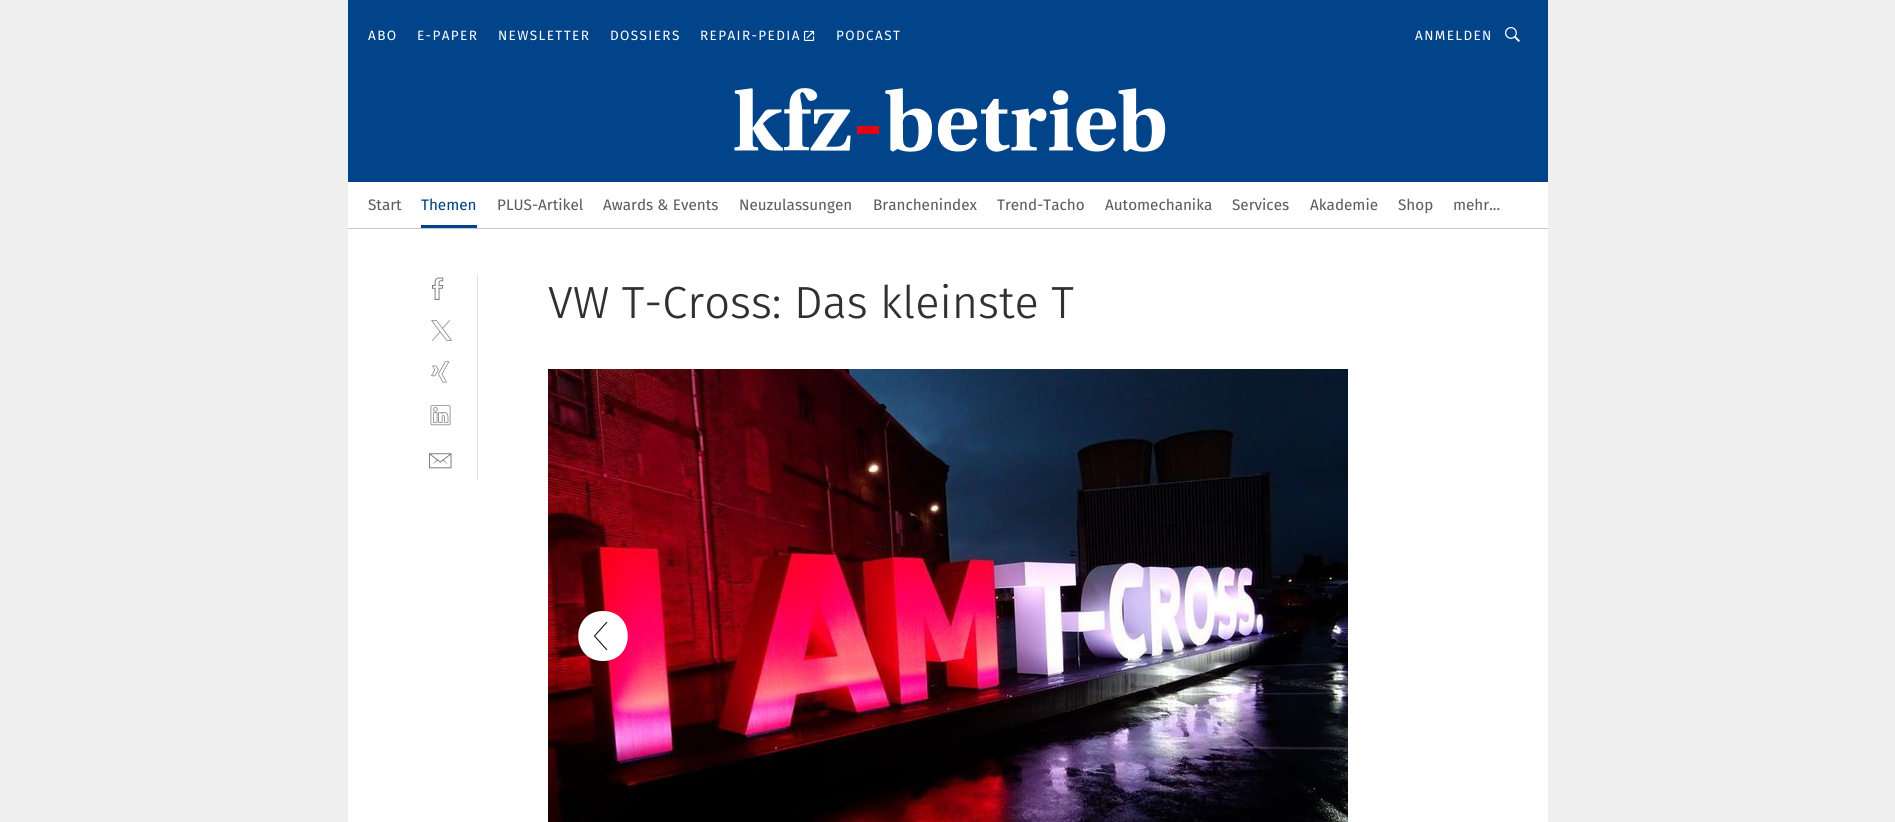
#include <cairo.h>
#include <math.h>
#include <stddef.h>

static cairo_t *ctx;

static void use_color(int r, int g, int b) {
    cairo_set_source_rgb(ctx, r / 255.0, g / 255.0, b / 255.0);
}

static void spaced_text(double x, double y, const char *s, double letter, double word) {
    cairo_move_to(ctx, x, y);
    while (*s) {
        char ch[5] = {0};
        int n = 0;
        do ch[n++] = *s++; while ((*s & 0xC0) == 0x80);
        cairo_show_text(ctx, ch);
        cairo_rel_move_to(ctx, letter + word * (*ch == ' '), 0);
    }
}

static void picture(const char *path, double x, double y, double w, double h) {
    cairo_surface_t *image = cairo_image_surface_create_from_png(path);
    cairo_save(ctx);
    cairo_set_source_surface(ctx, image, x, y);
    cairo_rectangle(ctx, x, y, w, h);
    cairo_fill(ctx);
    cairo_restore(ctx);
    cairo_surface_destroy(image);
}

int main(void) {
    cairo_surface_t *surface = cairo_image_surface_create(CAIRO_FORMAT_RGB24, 1895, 822);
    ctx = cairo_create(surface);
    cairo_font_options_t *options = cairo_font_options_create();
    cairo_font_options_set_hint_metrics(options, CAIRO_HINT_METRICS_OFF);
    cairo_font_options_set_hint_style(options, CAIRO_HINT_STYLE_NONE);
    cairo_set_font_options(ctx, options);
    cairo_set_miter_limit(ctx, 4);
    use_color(239, 239, 239);
    cairo_paint(ctx);
    use_color(255, 255, 255);
    cairo_rectangle(ctx, 348, 229, 1200, 593);
    cairo_fill(ctx);
    use_color(198, 198, 198);
    cairo_rectangle(ctx, 348, 228, 1200, 1);
    cairo_fill(ctx);
    use_color(1, 68, 137);
    cairo_rectangle(ctx, 348, 0, 1200, 182);
    cairo_fill(ctx);
    cairo_select_font_face(ctx, "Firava", CAIRO_FONT_SLANT_NORMAL, CAIRO_FONT_WEIGHT_NORMAL);
    cairo_set_font_size(ctx, 13.5);
    use_color(255, 255, 255);
    spaced_text(368, 40, "ABO", 1.4, 0);
    spaced_text(417, 40, "E-PAPER", 1.4, 0);
    spaced_text(498, 40, "NEWSLETTER", 1.4, 0);
    spaced_text(610, 40, "DOSSIERS", 1.4, 0);
    spaced_text(700, 40, "REPAIR-PEDIA", 1.4, 0);
    picture("img1.png", 804, 30, 11, 11);
    spaced_text(836, 40, "PODCAST", 1.4, 0);
    spaced_text(1415, 40, "ANMELDEN", 1.4, 0);
    picture("img2.png", 1505, 27, 15, 15);
    picture("img3.png", 734, 88, 432, 64);
    cairo_rectangle(ctx, 348, 182, 1200, 46);
    cairo_fill(ctx);
    cairo_select_font_face(ctx, "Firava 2", CAIRO_FONT_SLANT_NORMAL, CAIRO_FONT_WEIGHT_NORMAL);
    cairo_set_font_size(ctx, 15.25);
    use_color(94, 94, 94);
    cairo_move_to(ctx, 368, 210);
    cairo_show_text(ctx, "Start");
    use_color(1, 68, 137);
    cairo_rectangle(ctx, 421, 225, 56, 3);
    cairo_fill(ctx);
    cairo_move_to(ctx, 421, 210);
    cairo_show_text(ctx, "Themen");
    use_color(94, 94, 94);
    cairo_move_to(ctx, 497, 210);
    cairo_show_text(ctx, "PLUS-Artikel");
    cairo_move_to(ctx, 603, 210);
    cairo_show_text(ctx, "Awards & Events");
    cairo_move_to(ctx, 739, 210);
    cairo_show_text(ctx, "Neuzulassungen");
    cairo_move_to(ctx, 873, 210);
    cairo_show_text(ctx, "Branchenindex");
    cairo_move_to(ctx, 997, 210);
    cairo_show_text(ctx, "Trend-Tacho");
    cairo_move_to(ctx, 1105, 210);
    cairo_show_text(ctx, "Automechanika");
    cairo_move_to(ctx, 1232, 210);
    cairo_show_text(ctx, "Services");
    cairo_move_to(ctx, 1310, 210);
    cairo_show_text(ctx, "Akademie");
    cairo_move_to(ctx, 1398, 210);
    cairo_show_text(ctx, "Shop");
    cairo_move_to(ctx, 1453, 210);
    cairo_show_text(ctx, "mehr...");
    use_color(226, 226, 226);
    cairo_rectangle(ctx, 477, 274, 1, 206);
    cairo_fill(ctx);
    picture("img4.png", 432, 277, 12, 23);
    picture("img5.png", 431, 320, 21, 21);
    picture("img6.png", 431, 361, 19, 22);
    picture("img7.png", 430, 405, 21, 21);
    picture("img8.png", 429, 453, 23, 16);
    cairo_select_font_face(ctx, "Firava Light", CAIRO_FONT_SLANT_NORMAL, CAIRO_FONT_WEIGHT_NORMAL);
    cairo_set_font_size(ctx, 45);
    use_color(48, 48, 48);
    cairo_move_to(ctx, 548, 318);
    cairo_show_text(ctx, "VW T-Cross: Das kleinste T");
    picture("img9.png", 548, 369, 800, 453);
    use_color(255, 255, 255);
    cairo_new_path(ctx);
    cairo_move_to(ctx, 603, 661);
    cairo_curve_to(ctx, 636, 661, 636, 611, 603, 611);
    cairo_curve_to(ctx, 570, 611, 570, 661, 603, 661);
    cairo_fill(ctx);
    cairo_new_path(ctx);
    cairo_move_to(ctx, 607, 622);
    cairo_line_to(ctx, 594.5, 636);
    cairo_line_to(ctx, 607, 650);
    use_color(0, 0, 0);
    cairo_set_line_width(ctx, 1);
    cairo_stroke(ctx);
    cairo_surface_write_to_png(surface, "result.png");
    cairo_font_options_destroy(options);
    cairo_destroy(ctx);
    cairo_surface_destroy(surface);
    return 0;
}
